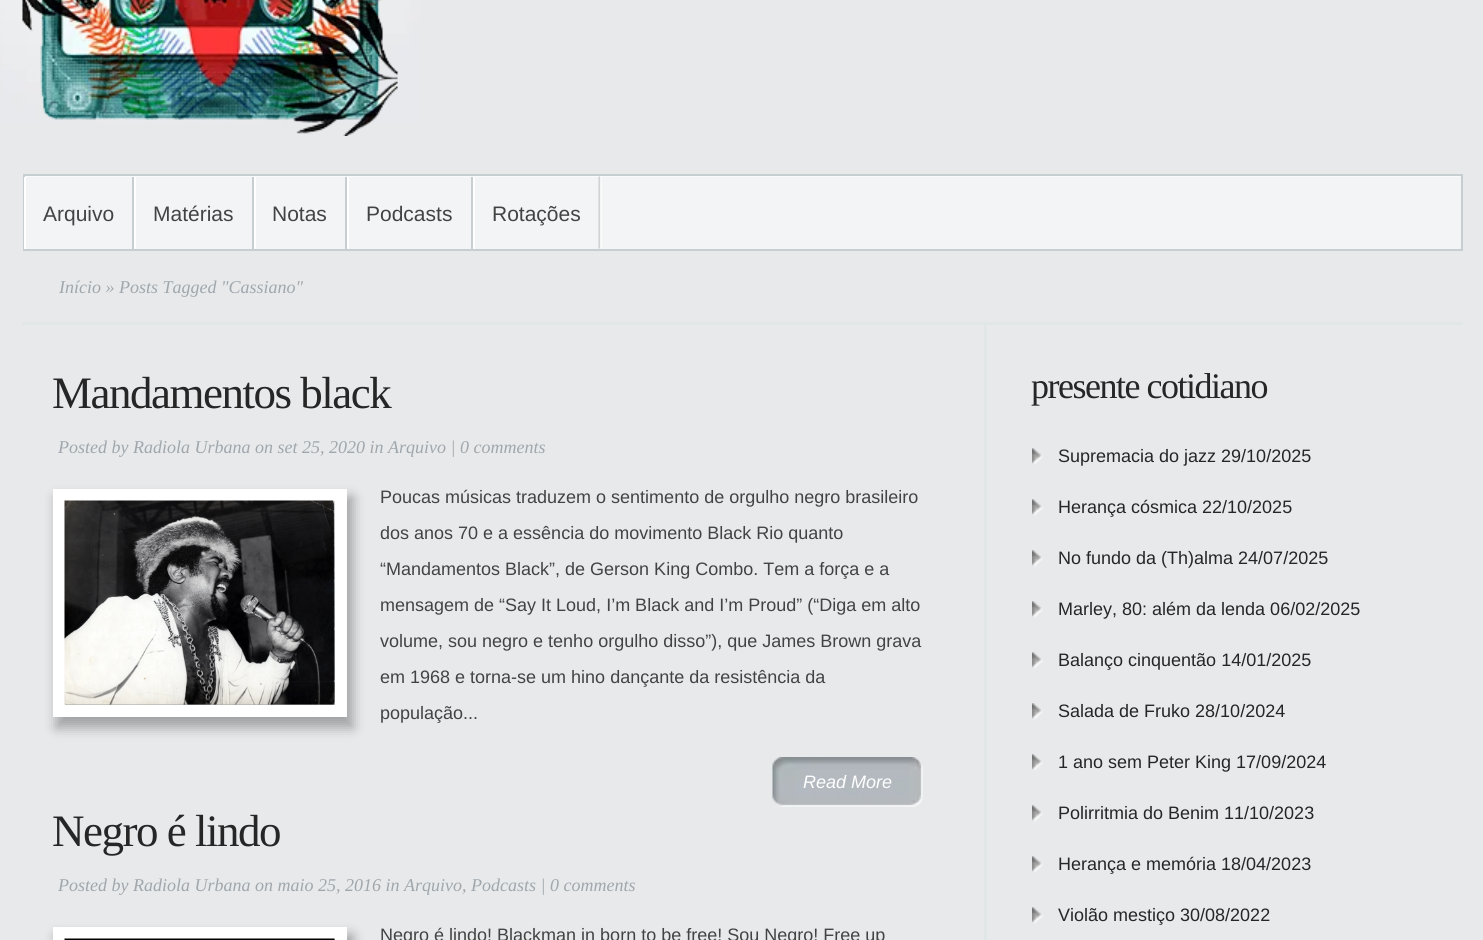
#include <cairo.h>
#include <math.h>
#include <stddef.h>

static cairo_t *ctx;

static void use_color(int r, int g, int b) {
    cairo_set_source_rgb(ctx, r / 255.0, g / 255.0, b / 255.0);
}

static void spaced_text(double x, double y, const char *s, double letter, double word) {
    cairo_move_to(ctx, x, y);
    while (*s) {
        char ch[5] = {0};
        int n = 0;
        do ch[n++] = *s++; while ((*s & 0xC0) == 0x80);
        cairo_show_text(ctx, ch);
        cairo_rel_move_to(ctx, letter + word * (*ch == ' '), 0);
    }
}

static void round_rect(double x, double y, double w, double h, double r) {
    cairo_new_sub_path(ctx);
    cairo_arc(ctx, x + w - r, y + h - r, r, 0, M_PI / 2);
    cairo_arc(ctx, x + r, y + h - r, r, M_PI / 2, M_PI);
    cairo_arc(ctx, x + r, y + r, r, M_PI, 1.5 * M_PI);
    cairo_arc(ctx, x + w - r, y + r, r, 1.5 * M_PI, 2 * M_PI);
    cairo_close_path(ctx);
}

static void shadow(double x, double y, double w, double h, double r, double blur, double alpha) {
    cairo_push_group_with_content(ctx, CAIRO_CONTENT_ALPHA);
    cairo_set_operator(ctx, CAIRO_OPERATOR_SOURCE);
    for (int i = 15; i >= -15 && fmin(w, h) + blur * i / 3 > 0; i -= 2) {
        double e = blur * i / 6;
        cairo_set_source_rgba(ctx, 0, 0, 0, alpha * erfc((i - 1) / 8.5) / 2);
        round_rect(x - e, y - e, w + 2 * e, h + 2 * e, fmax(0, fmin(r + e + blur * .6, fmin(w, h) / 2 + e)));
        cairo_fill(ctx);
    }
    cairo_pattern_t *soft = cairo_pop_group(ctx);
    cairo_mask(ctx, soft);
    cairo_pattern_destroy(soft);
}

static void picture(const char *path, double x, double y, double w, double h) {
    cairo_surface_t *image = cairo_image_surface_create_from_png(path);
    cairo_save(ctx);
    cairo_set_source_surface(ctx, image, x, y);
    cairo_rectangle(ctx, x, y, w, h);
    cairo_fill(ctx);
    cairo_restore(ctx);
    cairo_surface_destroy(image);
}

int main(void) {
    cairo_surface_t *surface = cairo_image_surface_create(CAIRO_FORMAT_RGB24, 1483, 940);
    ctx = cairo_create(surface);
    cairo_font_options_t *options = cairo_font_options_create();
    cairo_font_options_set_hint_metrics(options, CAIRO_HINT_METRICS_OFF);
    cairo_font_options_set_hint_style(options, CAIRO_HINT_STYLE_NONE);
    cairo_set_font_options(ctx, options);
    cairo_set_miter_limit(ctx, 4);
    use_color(231, 233, 235);
    cairo_paint(ctx);
    picture("img1.png", 0, 0, 419, 123);
    picture("img2.png", 22, 0, 376, 136);
    use_color(243, 244, 245);
    cairo_rectangle(ctx, 25, 176, 1436, 73);
    cairo_fill(ctx);
    picture("img3.png", 22, 175, 1439, 2);
    cairo_rectangle(ctx, 24, 175, 1438, 75);
    use_color(199, 206, 209);
    cairo_stroke(ctx);
    cairo_rectangle(ctx, 132, 177, 2, 72);
    cairo_fill(ctx);
    use_color(255, 255, 255);
    cairo_rectangle(ctx, 24, 177, 2, 72);
    cairo_fill(ctx);
    cairo_select_font_face(ctx, "Liberation Sans", CAIRO_FONT_SLANT_NORMAL, CAIRO_FONT_WEIGHT_NORMAL);
    cairo_set_font_size(ctx, 21);
    use_color(67, 67, 67);
    cairo_move_to(ctx, 43, 221);
    cairo_show_text(ctx, "Arquivo");
    use_color(199, 206, 209);
    cairo_rectangle(ctx, 252, 177, 2, 72);
    cairo_fill(ctx);
    use_color(255, 255, 255);
    cairo_rectangle(ctx, 134, 177, 2, 72);
    cairo_fill(ctx);
    use_color(67, 67, 67);
    cairo_move_to(ctx, 153, 221);
    cairo_show_text(ctx, "Matérias");
    use_color(199, 206, 209);
    cairo_rectangle(ctx, 345, 177, 2, 72);
    cairo_fill(ctx);
    use_color(255, 255, 255);
    cairo_rectangle(ctx, 254, 177, 2, 72);
    cairo_fill(ctx);
    use_color(67, 67, 67);
    cairo_move_to(ctx, 272, 221);
    cairo_show_text(ctx, "Notas");
    use_color(199, 206, 209);
    cairo_rectangle(ctx, 471, 177, 2, 72);
    cairo_fill(ctx);
    use_color(255, 255, 255);
    cairo_rectangle(ctx, 347, 177, 2, 72);
    cairo_fill(ctx);
    use_color(67, 67, 67);
    cairo_move_to(ctx, 366, 221);
    cairo_show_text(ctx, "Podcasts");
    picture("img4.png", 598, 176, 4, 73);
    use_color(255, 255, 255);
    cairo_rectangle(ctx, 473, 177, 2, 72);
    cairo_fill(ctx);
    use_color(67, 67, 67);
    cairo_move_to(ctx, 492, 221);
    cairo_show_text(ctx, "Rotações");
    use_color(225, 231, 231);
    cairo_rectangle(ctx, 22, 322, 1441, 3);
    cairo_fill(ctx);
    cairo_select_font_face(ctx, "Liberation Serif", CAIRO_FONT_SLANT_ITALIC, CAIRO_FONT_WEIGHT_NORMAL);
    cairo_set_font_size(ctx, 18);
    use_color(160, 167, 172);
    cairo_move_to(ctx, 59, 293);
    cairo_show_text(ctx, "Início » Posts Tagged \"Cassiano\"");
    use_color(225, 231, 231);
    cairo_rectangle(ctx, 984, 325, 3, 615);
    cairo_fill(ctx);
    cairo_select_font_face(ctx, "Liberation Serif", CAIRO_FONT_SLANT_NORMAL, CAIRO_FONT_WEIGHT_NORMAL);
    cairo_set_font_size(ctx, 45);
    use_color(38, 38, 38);
    spaced_text(52, 408, "Mandamentos black", -1.5, 0);
    cairo_select_font_face(ctx, "Liberation Serif", CAIRO_FONT_SLANT_ITALIC, CAIRO_FONT_WEIGHT_NORMAL);
    cairo_set_font_size(ctx, 18);
    use_color(160, 167, 172);
    cairo_move_to(ctx, 58, 453);
    cairo_show_text(ctx, "Posted by Radiola Urbana on set 25, 2020 in Arquivo | 0 comments");
    use_color(0, 0, 0);
    shadow(56, 497, 297, 231, 0, 6, 0.3);
    cairo_rectangle(ctx, 59, 495, 282, 216);
    use_color(255, 255, 255);
    cairo_set_line_width(ctx, 12);
    cairo_stroke(ctx);
    picture("img5.png", 64, 500, 271, 205);
    cairo_select_font_face(ctx, "Liberation Sans", CAIRO_FONT_SLANT_NORMAL, CAIRO_FONT_WEIGHT_NORMAL);
    use_color(67, 67, 67);
    cairo_move_to(ctx, 380, 503);
    cairo_show_text(ctx, "Poucas músicas traduzem o sentimento de orgulho negro brasileiro");
    cairo_move_to(ctx, 380, 539);
    cairo_show_text(ctx, "dos anos 70 e a essência do movimento Black Rio quanto");
    cairo_move_to(ctx, 380, 575);
    cairo_show_text(ctx, "“Mandamentos Black”, de Gerson King Combo. Tem a força e a");
    cairo_move_to(ctx, 380, 611);
    cairo_show_text(ctx, "mensagem de “Say It Loud, I’m Black and I’m Proud” (“Diga em alto");
    cairo_move_to(ctx, 380, 647);
    cairo_show_text(ctx, "volume, sou negro e tenho orgulho disso”), que James Brown grava");
    cairo_move_to(ctx, 380, 683);
    cairo_show_text(ctx, "em 1968 e torna-se um hino dançante da resistência da");
    cairo_move_to(ctx, 380, 719);
    cairo_show_text(ctx, "população...");
    picture("img6.png", 909, 757, 14, 50);
    picture("img7.png", 772, 757, 137, 50);
    cairo_select_font_face(ctx, "Liberation Sans", CAIRO_FONT_SLANT_ITALIC, CAIRO_FONT_WEIGHT_NORMAL);
    use_color(255, 255, 255);
    cairo_move_to(ctx, 803, 788);
    cairo_show_text(ctx, "Read More");
    cairo_select_font_face(ctx, "Liberation Serif", CAIRO_FONT_SLANT_NORMAL, CAIRO_FONT_WEIGHT_NORMAL);
    cairo_set_font_size(ctx, 45);
    use_color(38, 38, 38);
    spaced_text(52, 846, "Negro é lindo", -1.5, 0);
    cairo_select_font_face(ctx, "Liberation Serif", CAIRO_FONT_SLANT_ITALIC, CAIRO_FONT_WEIGHT_NORMAL);
    cairo_set_font_size(ctx, 18);
    use_color(160, 167, 172);
    cairo_move_to(ctx, 58, 891);
    cairo_show_text(ctx, "Posted by Radiola Urbana on maio 25, 2016 in Arquivo, Podcasts | 0 comments");
    use_color(0, 0, 0);
    shadow(56, 935, 297, 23, 0, 6, 0.3);
    cairo_rectangle(ctx, 59, 933, 282, 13);
    use_color(255, 255, 255);
    cairo_stroke(ctx);
    picture("img8.png", 64, 938, 271, 2);
    cairo_select_font_face(ctx, "Liberation Sans", CAIRO_FONT_SLANT_NORMAL, CAIRO_FONT_WEIGHT_NORMAL);
    use_color(67, 67, 67);
    cairo_move_to(ctx, 380, 941);
    cairo_show_text(ctx, "Negro é lindo! Blackman in born to be free! Sou Negro! Free up");
    cairo_select_font_face(ctx, "Liberation Serif", CAIRO_FONT_SLANT_NORMAL, CAIRO_FONT_WEIGHT_NORMAL);
    cairo_set_font_size(ctx, 36);
    use_color(38, 38, 38);
    spaced_text(1031, 398, "presente cotidiano", -1.5, 0);
    picture("img9.png", 1032, 448, 11, 17);
    cairo_select_font_face(ctx, "Liberation Sans", CAIRO_FONT_SLANT_NORMAL, CAIRO_FONT_WEIGHT_NORMAL);
    cairo_set_font_size(ctx, 18);
    cairo_move_to(ctx, 1058, 462);
    cairo_show_text(ctx, "Supremacia do jazz 29/10/2025");
    picture("img9.png", 1032, 499, 11, 17);
    cairo_move_to(ctx, 1058, 513);
    cairo_show_text(ctx, "Herança cósmica 22/10/2025");
    picture("img9.png", 1032, 550, 11, 17);
    cairo_move_to(ctx, 1058, 564);
    cairo_show_text(ctx, "No fundo da (Th)alma 24/07/2025");
    picture("img9.png", 1032, 601, 11, 17);
    cairo_move_to(ctx, 1058, 615);
    cairo_show_text(ctx, "Marley, 80: além da lenda 06/02/2025");
    picture("img9.png", 1032, 652, 11, 17);
    cairo_move_to(ctx, 1058, 666);
    cairo_show_text(ctx, "Balanço cinquentão 14/01/2025");
    picture("img9.png", 1032, 703, 11, 17);
    cairo_move_to(ctx, 1058, 717);
    cairo_show_text(ctx, "Salada de Fruko 28/10/2024");
    picture("img9.png", 1032, 754, 11, 17);
    cairo_move_to(ctx, 1058, 768);
    cairo_show_text(ctx, "1 ano sem Peter King 17/09/2024");
    picture("img9.png", 1032, 805, 11, 17);
    cairo_move_to(ctx, 1058, 819);
    cairo_show_text(ctx, "Polirritmia do Benim 11/10/2023");
    picture("img9.png", 1032, 856, 11, 17);
    cairo_move_to(ctx, 1058, 870);
    cairo_show_text(ctx, "Herança e memória 18/04/2023");
    picture("img9.png", 1032, 907, 11, 17);
    cairo_move_to(ctx, 1058, 921);
    cairo_show_text(ctx, "Violão mestiço 30/08/2022");
    cairo_surface_write_to_png(surface, "result.png");
    cairo_font_options_destroy(options);
    cairo_destroy(ctx);
    cairo_surface_destroy(surface);
    return 0;
}
